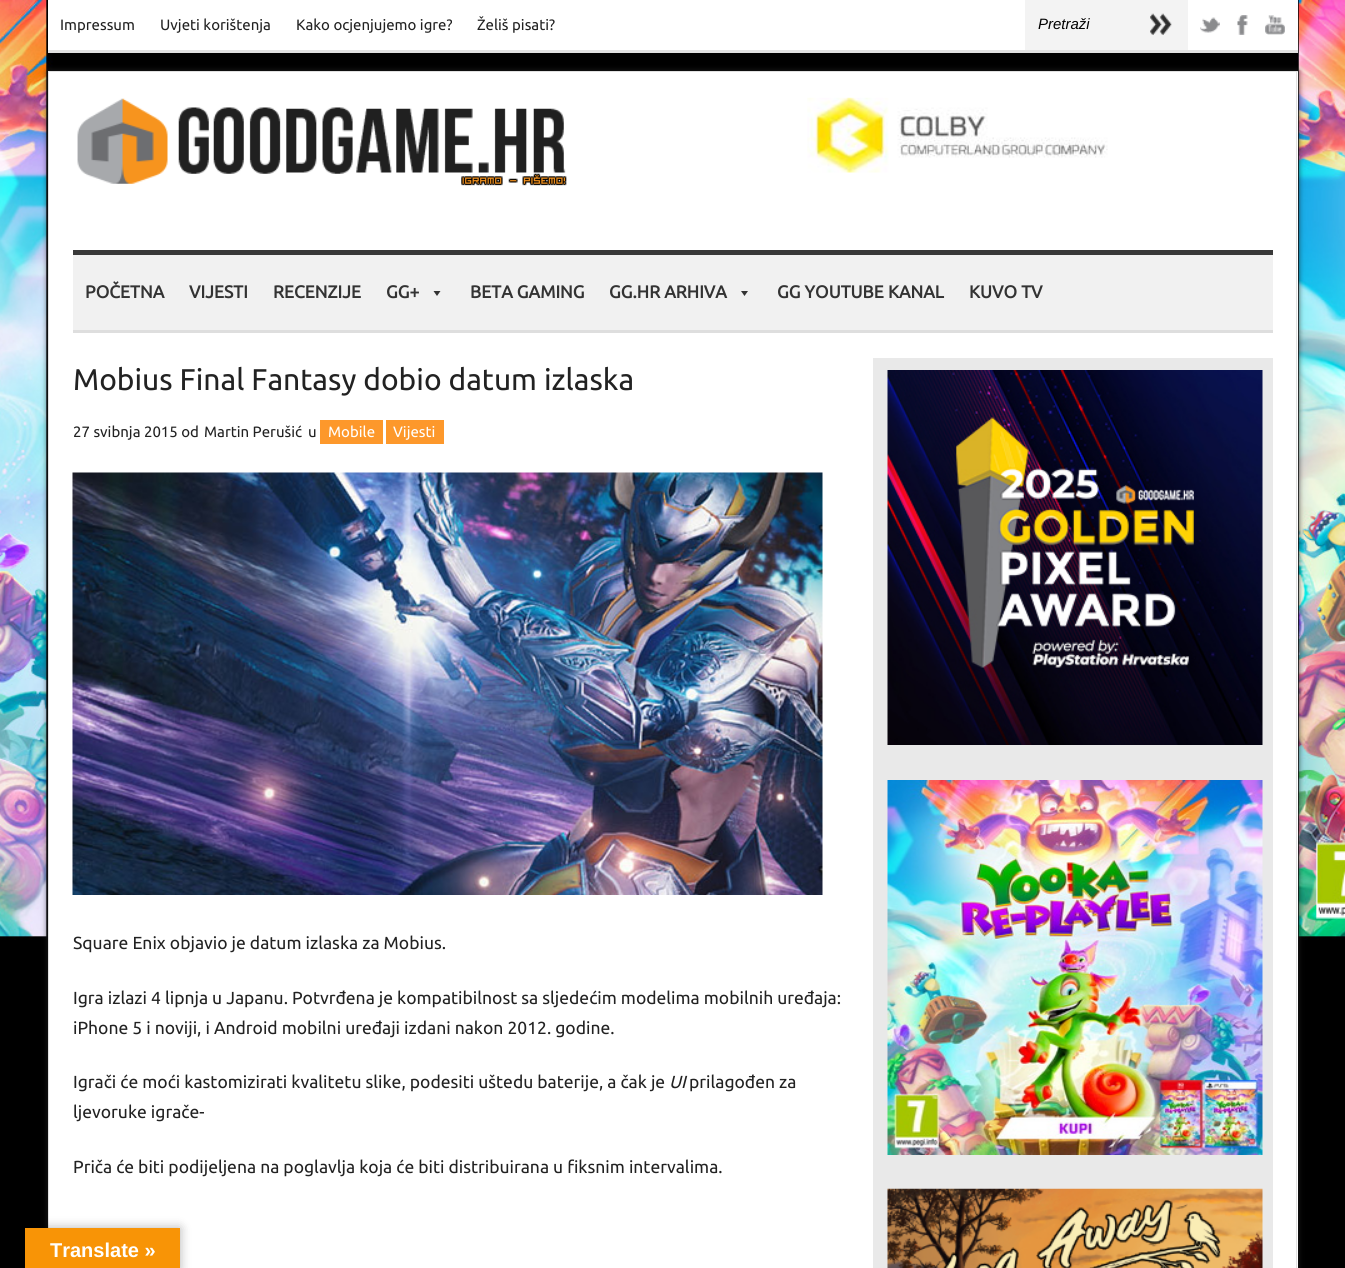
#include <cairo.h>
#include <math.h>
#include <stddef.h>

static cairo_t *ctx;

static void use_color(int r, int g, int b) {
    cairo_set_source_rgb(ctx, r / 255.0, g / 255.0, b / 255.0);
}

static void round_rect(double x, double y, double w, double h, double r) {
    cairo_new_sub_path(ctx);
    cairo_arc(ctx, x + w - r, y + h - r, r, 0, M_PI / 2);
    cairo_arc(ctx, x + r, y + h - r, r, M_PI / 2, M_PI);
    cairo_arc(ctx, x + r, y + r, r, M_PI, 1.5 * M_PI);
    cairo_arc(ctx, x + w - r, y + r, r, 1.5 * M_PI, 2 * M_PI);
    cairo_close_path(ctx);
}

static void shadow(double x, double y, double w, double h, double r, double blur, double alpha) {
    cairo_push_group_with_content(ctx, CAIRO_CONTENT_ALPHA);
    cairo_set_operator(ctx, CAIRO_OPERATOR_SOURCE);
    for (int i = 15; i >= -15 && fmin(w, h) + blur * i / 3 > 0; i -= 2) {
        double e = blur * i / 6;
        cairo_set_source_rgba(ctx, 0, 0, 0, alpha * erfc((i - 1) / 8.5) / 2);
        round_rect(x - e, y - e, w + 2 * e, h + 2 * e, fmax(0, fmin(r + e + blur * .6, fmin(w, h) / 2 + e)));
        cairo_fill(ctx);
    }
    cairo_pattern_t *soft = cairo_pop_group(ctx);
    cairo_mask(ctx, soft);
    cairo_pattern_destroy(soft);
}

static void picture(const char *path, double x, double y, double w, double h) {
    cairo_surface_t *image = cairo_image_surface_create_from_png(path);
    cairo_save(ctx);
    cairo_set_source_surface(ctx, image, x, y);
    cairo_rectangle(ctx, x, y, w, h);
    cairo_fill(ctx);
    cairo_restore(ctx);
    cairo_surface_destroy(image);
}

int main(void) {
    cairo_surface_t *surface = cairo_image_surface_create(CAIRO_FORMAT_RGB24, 1345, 1268);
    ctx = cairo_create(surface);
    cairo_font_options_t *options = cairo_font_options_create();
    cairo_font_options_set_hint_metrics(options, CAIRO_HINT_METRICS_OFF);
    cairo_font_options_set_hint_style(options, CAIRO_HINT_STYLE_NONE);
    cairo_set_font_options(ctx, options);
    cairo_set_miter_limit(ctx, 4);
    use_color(0, 0, 0);
    cairo_paint(ctx);
    picture("img1.png", 0, 0, 1345, 940);
    use_color(255, 255, 255);
    cairo_rectangle(ctx, 48, 0, 1250, 50);
    cairo_fill(ctx);
    use_color(225, 225, 225);
    cairo_rectangle(ctx, 48, 50, 1250, 3);
    cairo_fill(ctx);
    cairo_select_font_face(ctx, "Ubuntu", CAIRO_FONT_SLANT_NORMAL, CAIRO_FONT_WEIGHT_NORMAL);
    cairo_set_font_size(ctx, 15);
    use_color(34, 34, 34);
    cairo_move_to(ctx, 60, 30);
    cairo_show_text(ctx, "Impressum");
    cairo_move_to(ctx, 160, 30);
    cairo_show_text(ctx, "Uvjeti korištenja");
    cairo_move_to(ctx, 296, 30);
    cairo_show_text(ctx, "Kako ocjenjujemo igre?");
    cairo_move_to(ctx, 477, 30);
    cairo_show_text(ctx, "Želiš pisati?");
    use_color(243, 243, 243);
    cairo_rectangle(ctx, 1025, 0, 163, 50);
    cairo_fill(ctx);
    cairo_select_font_face(ctx, "Liberation Sans", CAIRO_FONT_SLANT_ITALIC, CAIRO_FONT_WEIGHT_NORMAL);
    use_color(0, 0, 0);
    cairo_move_to(ctx, 1038, 29);
    cairo_show_text(ctx, "Pretraži");
    picture("img2.png", 1150, 13, 22, 22);
    picture("img3.png", 1200, 17, 20, 16);
    picture("img4.png", 1237, 15, 11, 20);
    picture("img5.png", 1265, 15, 20, 20);
    use_color(33, 33, 33);
    shadow(48, 71, 1250, 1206, 0, 3, 1);
    use_color(255, 255, 255);
    cairo_rectangle(ctx, 49, 72, 1249, 1196);
    cairo_fill(ctx);
    use_color(225, 225, 225);
    cairo_rectangle(ctx, 48, 71, 1250, 1);
    cairo_fill(ctx);
    cairo_rectangle(ctx, 1296, 71, 1, 1197);
    cairo_fill(ctx);
    cairo_rectangle(ctx, 48, 71, 1, 1157);
    cairo_fill(ctx);
    picture("img6.png", 77, 98, 490, 88);
    picture("img7.png", 807, 97, 301, 76);
    use_color(241, 241, 241);
    cairo_rectangle(ctx, 73, 255, 1200, 75);
    cairo_fill(ctx);
    use_color(57, 57, 57);
    cairo_rectangle(ctx, 73, 250, 1200, 5);
    cairo_fill(ctx);
    use_color(222, 222, 222);
    cairo_rectangle(ctx, 73, 330, 1200, 3);
    cairo_fill(ctx);
    cairo_select_font_face(ctx, "Ubuntu", CAIRO_FONT_SLANT_NORMAL, CAIRO_FONT_WEIGHT_BOLD);
    cairo_set_font_size(ctx, 17.5);
    use_color(51, 51, 51);
    cairo_move_to(ctx, 85, 298);
    cairo_show_text(ctx, "POČETNA");
    cairo_move_to(ctx, 189, 298);
    cairo_show_text(ctx, "VIJESTI");
    cairo_move_to(ctx, 273, 298);
    cairo_show_text(ctx, "RECENZIJE");
    cairo_move_to(ctx, 386, 298);
    cairo_show_text(ctx, "GG+");
    cairo_new_path(ctx);
    cairo_move_to(ctx, 440.5, 291);
    cairo_line_to(ctx, 437, 296);
    cairo_line_to(ctx, 433.5, 291);
    cairo_close_path(ctx);
    cairo_fill(ctx);
    cairo_move_to(ctx, 470, 298);
    cairo_show_text(ctx, "BETA GAMING");
    cairo_move_to(ctx, 609, 298);
    cairo_show_text(ctx, "GG.HR ARHIVA");
    cairo_new_path(ctx);
    cairo_move_to(ctx, 748, 291);
    cairo_line_to(ctx, 744.5, 296);
    cairo_line_to(ctx, 741, 291);
    cairo_close_path(ctx);
    cairo_fill(ctx);
    cairo_move_to(ctx, 777, 298);
    cairo_show_text(ctx, "GG YOUTUBE KANAL");
    cairo_move_to(ctx, 969, 298);
    cairo_show_text(ctx, "KUVO TV");
    cairo_select_font_face(ctx, "Ubuntu", CAIRO_FONT_SLANT_NORMAL, CAIRO_FONT_WEIGHT_NORMAL);
    cairo_set_font_size(ctx, 30);
    use_color(34, 34, 34);
    cairo_move_to(ctx, 73, 390);
    cairo_show_text(ctx, "Mobius Final Fantasy dobio datum izlaska");
    cairo_set_font_size(ctx, 15);
    cairo_move_to(ctx, 73, 437);
    cairo_show_text(ctx, "27 svibnja 2015 od");
    cairo_move_to(ctx, 204, 437);
    cairo_show_text(ctx, "Martin Perušić");
    cairo_move_to(ctx, 308, 437);
    cairo_show_text(ctx, "u");
    use_color(253, 152, 43);
    cairo_rectangle(ctx, 320, 420, 63, 24);
    cairo_fill(ctx);
    use_color(255, 255, 255);
    cairo_move_to(ctx, 328, 437);
    cairo_show_text(ctx, "Mobile");
    use_color(253, 152, 43);
    cairo_rectangle(ctx, 386, 420, 58, 24);
    cairo_fill(ctx);
    use_color(255, 255, 255);
    cairo_move_to(ctx, 393, 437);
    cairo_show_text(ctx, "Vijesti");
    picture("img8.png", 72, 472, 751, 423);
    cairo_set_font_size(ctx, 17.5);
    use_color(34, 34, 34);
    cairo_move_to(ctx, 73, 949);
    cairo_show_text(ctx, "Square Enix objavio je datum izlaska za Mobius.");
    cairo_move_to(ctx, 73, 1004);
    cairo_show_text(ctx, "Igra izlazi 4 lipnja u Japanu. Potvrđena je kompatibilnost sa sljedećim modelima mobilnih uređaja:");
    cairo_move_to(ctx, 73, 1034);
    cairo_show_text(ctx, "iPhone 5 i noviji, i Android mobilni uređaji izdani nakon 2012. godine.");
    cairo_move_to(ctx, 73, 1088);
    cairo_show_text(ctx, "Igrači će moći kastomizirati kvalitetu slike, podesiti uštedu baterije, a čak je");
    cairo_select_font_face(ctx, "Ubuntu", CAIRO_FONT_SLANT_ITALIC, CAIRO_FONT_WEIGHT_NORMAL);
    cairo_move_to(ctx, 669, 1088);
    cairo_show_text(ctx, "UI");
    cairo_select_font_face(ctx, "Ubuntu", CAIRO_FONT_SLANT_NORMAL, CAIRO_FONT_WEIGHT_NORMAL);
    cairo_move_to(ctx, 689, 1088);
    cairo_show_text(ctx, "prilagođen za");
    cairo_move_to(ctx, 73, 1118);
    cairo_show_text(ctx, "ljevoruke igrače-");
    cairo_move_to(ctx, 73, 1173);
    cairo_show_text(ctx, "Priča će biti podijeljena na poglavlja koja će biti distribuirana u fiksnim intervalima.");
    use_color(233, 233, 233);
    cairo_rectangle(ctx, 873, 358, 400, 910);
    cairo_fill(ctx);
    picture("img9.png", 887, 370, 376, 375);
    picture("img10.png", 887, 780, 376, 375);
    picture("img11.png", 887, 1188, 376, 80);
    use_color(0, 0, 0);
    shadow(25, 1228, 155, 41, 0, 5.5, 0.3);
    use_color(248, 148, 6);
    cairo_rectangle(ctx, 25, 1228, 155, 40);
    cairo_fill(ctx);
    cairo_select_font_face(ctx, "Liberation Sans", CAIRO_FONT_SLANT_NORMAL, CAIRO_FONT_WEIGHT_BOLD);
    cairo_set_font_size(ctx, 20);
    use_color(255, 255, 255);
    cairo_move_to(ctx, 50, 1257);
    cairo_show_text(ctx, "Translate »");
    cairo_surface_write_to_png(surface, "result.png");
    cairo_font_options_destroy(options);
    cairo_destroy(ctx);
    cairo_surface_destroy(surface);
    return 0;
}
